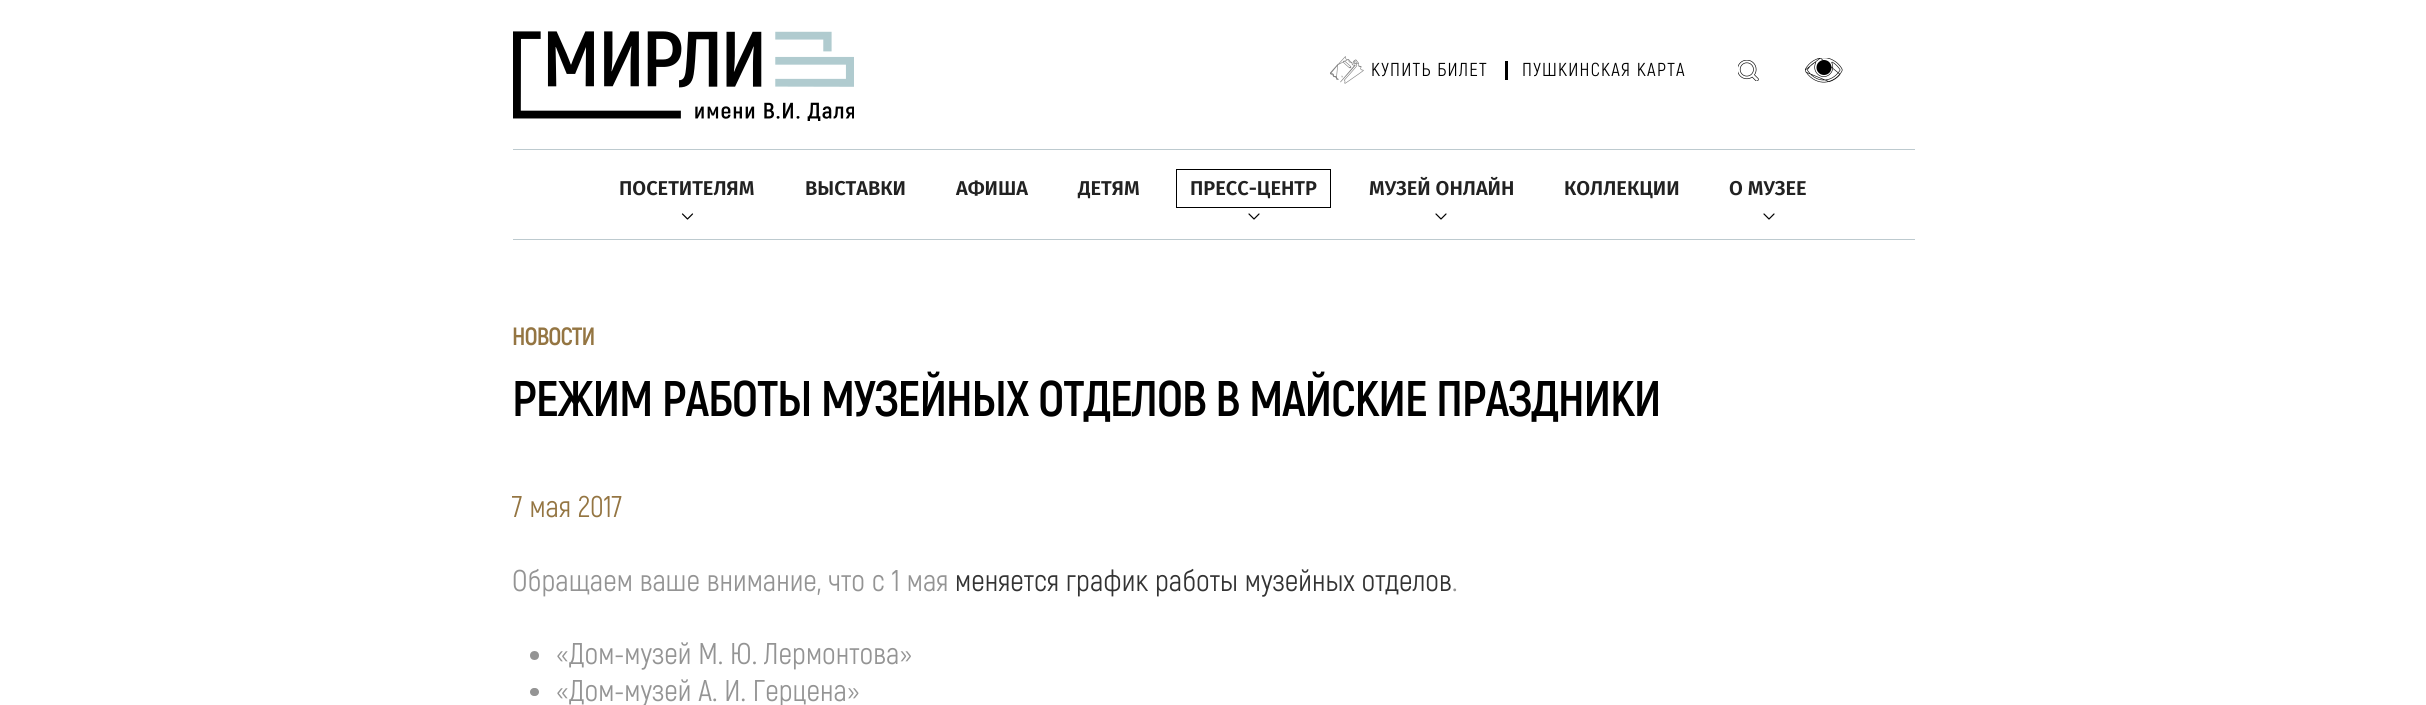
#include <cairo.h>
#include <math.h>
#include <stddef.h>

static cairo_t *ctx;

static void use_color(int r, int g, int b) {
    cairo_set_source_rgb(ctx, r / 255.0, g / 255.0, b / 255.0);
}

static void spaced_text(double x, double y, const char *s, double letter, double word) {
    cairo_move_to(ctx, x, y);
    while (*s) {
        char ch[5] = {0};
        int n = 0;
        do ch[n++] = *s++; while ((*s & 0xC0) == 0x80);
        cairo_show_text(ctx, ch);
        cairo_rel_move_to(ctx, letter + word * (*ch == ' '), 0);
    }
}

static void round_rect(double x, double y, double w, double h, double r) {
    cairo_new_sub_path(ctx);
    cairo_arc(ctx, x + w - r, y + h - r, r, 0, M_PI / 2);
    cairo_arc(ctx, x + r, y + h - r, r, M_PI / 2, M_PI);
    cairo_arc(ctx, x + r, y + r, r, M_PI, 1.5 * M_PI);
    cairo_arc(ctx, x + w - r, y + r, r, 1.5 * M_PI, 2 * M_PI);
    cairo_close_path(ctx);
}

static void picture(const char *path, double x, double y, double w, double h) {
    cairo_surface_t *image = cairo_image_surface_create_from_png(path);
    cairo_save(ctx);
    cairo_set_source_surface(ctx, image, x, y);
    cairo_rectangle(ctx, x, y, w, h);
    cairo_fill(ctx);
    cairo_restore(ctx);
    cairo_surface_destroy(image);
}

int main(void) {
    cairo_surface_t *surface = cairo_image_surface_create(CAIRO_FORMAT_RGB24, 2426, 705);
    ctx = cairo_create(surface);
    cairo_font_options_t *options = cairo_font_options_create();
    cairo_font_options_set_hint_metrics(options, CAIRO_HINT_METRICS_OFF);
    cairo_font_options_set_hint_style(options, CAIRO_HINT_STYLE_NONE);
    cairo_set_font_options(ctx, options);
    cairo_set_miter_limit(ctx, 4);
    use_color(255, 255, 255);
    cairo_paint(ctx);
    picture("img1.png", 513, 31, 341, 90);
    picture("img2.png", 1330, 56, 34, 28);
    cairo_select_font_face(ctx, "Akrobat", CAIRO_FONT_SLANT_NORMAL, CAIRO_FONT_WEIGHT_NORMAL);
    cairo_set_font_size(ctx, 18.75);
    use_color(0, 0, 0);
    spaced_text(1371, 76, "КУПИТЬ БИЛЕТ", 1.25, 0);
    cairo_rectangle(ctx, 1505, 61, 3, 19);
    cairo_fill(ctx);
    spaced_text(1522, 76, "ПУШКИНСКАЯ КАРТА", 1.25, 0);
    picture("img3.png", 1738, 60, 21, 21);
    picture("img4.png", 1805, 58, 38, 25);
    use_color(189, 202, 207);
    cairo_rectangle(ctx, 513, 149, 1402, 1);
    cairo_fill(ctx);
    cairo_rectangle(ctx, 513, 239, 1402, 1);
    cairo_fill(ctx);
    cairo_select_font_face(ctx, "Fira Sans SemiBold", CAIRO_FONT_SLANT_NORMAL, CAIRO_FONT_WEIGHT_NORMAL);
    cairo_set_font_size(ctx, 20);
    use_color(34, 34, 34);
    cairo_move_to(ctx, 619, 195);
    cairo_show_text(ctx, "ПОСЕТИТЕЛЯМ");
    cairo_new_path(ctx);
    cairo_move_to(ctx, 682.5, 214);
    cairo_line_to(ctx, 687.5, 219);
    cairo_line_to(ctx, 692.5, 214);
    use_color(0, 0, 0);
    cairo_set_line_width(ctx, 1.2);
    cairo_set_line_cap(ctx, CAIRO_LINE_CAP_ROUND);
    cairo_set_line_join(ctx, CAIRO_LINE_JOIN_ROUND);
    cairo_stroke(ctx);
    use_color(34, 34, 34);
    cairo_move_to(ctx, 805, 195);
    cairo_show_text(ctx, "ВЫСТАВКИ");
    cairo_move_to(ctx, 956, 195);
    cairo_show_text(ctx, "АФИША");
    cairo_move_to(ctx, 1078, 195);
    cairo_show_text(ctx, "ДЕТЯМ");
    cairo_rectangle(ctx, 1176.5, 169.5, 154, 38);
    use_color(0, 0, 0);
    cairo_set_line_width(ctx, 1);
    cairo_set_line_cap(ctx, CAIRO_LINE_CAP_BUTT);
    cairo_set_line_join(ctx, CAIRO_LINE_JOIN_MITER);
    cairo_stroke(ctx);
    use_color(34, 34, 34);
    cairo_move_to(ctx, 1190, 195);
    cairo_show_text(ctx, "ПРЕСС-ЦЕНТР");
    cairo_new_path(ctx);
    cairo_move_to(ctx, 1249, 214);
    cairo_line_to(ctx, 1254, 219);
    cairo_line_to(ctx, 1259, 214);
    use_color(0, 0, 0);
    cairo_set_line_width(ctx, 1.2);
    cairo_set_line_cap(ctx, CAIRO_LINE_CAP_ROUND);
    cairo_set_line_join(ctx, CAIRO_LINE_JOIN_ROUND);
    cairo_stroke(ctx);
    use_color(34, 34, 34);
    cairo_move_to(ctx, 1369, 195);
    cairo_show_text(ctx, "МУЗЕЙ ОНЛАЙН");
    cairo_new_path(ctx);
    cairo_move_to(ctx, 1436, 214);
    cairo_line_to(ctx, 1441, 219);
    cairo_line_to(ctx, 1446, 214);
    use_color(0, 0, 0);
    cairo_stroke(ctx);
    use_color(34, 34, 34);
    cairo_move_to(ctx, 1564, 195);
    cairo_show_text(ctx, "КОЛЛЕКЦИИ");
    cairo_move_to(ctx, 1729, 195);
    cairo_show_text(ctx, "О МУЗЕЕ");
    cairo_new_path(ctx);
    cairo_move_to(ctx, 1764, 214);
    cairo_line_to(ctx, 1769, 219);
    cairo_line_to(ctx, 1774, 214);
    use_color(0, 0, 0);
    cairo_stroke(ctx);
    cairo_select_font_face(ctx, "Akrobat", CAIRO_FONT_SLANT_NORMAL, CAIRO_FONT_WEIGHT_BOLD);
    cairo_set_font_size(ctx, 25);
    use_color(148, 117, 66);
    spaced_text(512, 345, "НОВОСТИ", -1, 0);
    cairo_set_font_size(ctx, 50);
    use_color(0, 0, 0);
    spaced_text(512, 416, "РЕЖИМ РАБОТЫ МУЗЕЙНЫХ ОТДЕЛОВ В МАЙСКИЕ ПРАЗДНИКИ", -1.25, 0);
    cairo_select_font_face(ctx, "Akrobat", CAIRO_FONT_SLANT_NORMAL, CAIRO_FONT_WEIGHT_NORMAL);
    cairo_set_font_size(ctx, 30);
    use_color(148, 117, 66);
    cairo_move_to(ctx, 512, 517);
    cairo_show_text(ctx, "7 мая 2017");
    use_color(148, 148, 148);
    cairo_move_to(ctx, 512, 591);
    cairo_show_text(ctx, "Обращаем ваше внимание, что с 1 мая");
    use_color(51, 51, 51);
    cairo_move_to(ctx, 955, 591);
    cairo_show_text(ctx, "меняется график работы музейных отделов");
    use_color(148, 148, 148);
    cairo_move_to(ctx, 1452, 591);
    cairo_show_text(ctx, ".");
    cairo_new_path(ctx);
    cairo_arc(ctx, 534.5, 655.5, 4.5, 0, 2 * M_PI);
    cairo_fill(ctx);
    cairo_move_to(ctx, 556, 664);
    cairo_show_text(ctx, "«Дом-музей М. Ю. Лермонтова»");
    round_rect(530, 688, 9, 8, 4);
    cairo_fill(ctx);
    cairo_move_to(ctx, 556, 701);
    cairo_show_text(ctx, "«Дом-музей А. И. Герцена»");
    cairo_surface_write_to_png(surface, "result.png");
    cairo_font_options_destroy(options);
    cairo_destroy(ctx);
    cairo_surface_destroy(surface);
    return 0;
}
